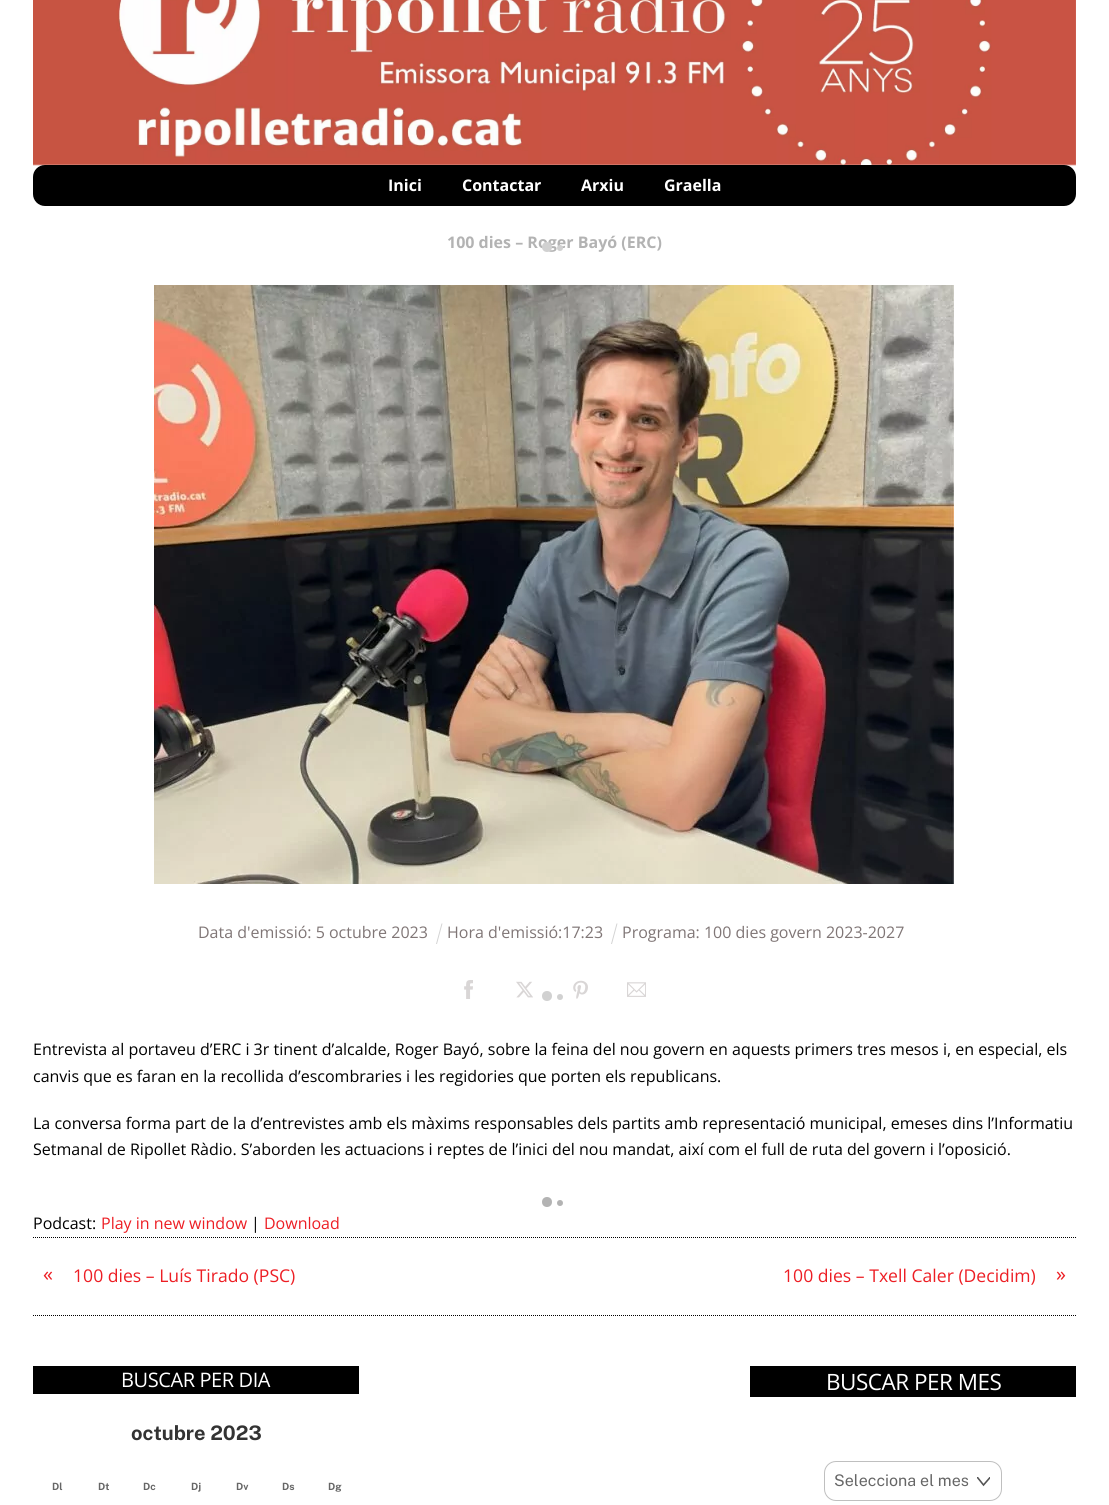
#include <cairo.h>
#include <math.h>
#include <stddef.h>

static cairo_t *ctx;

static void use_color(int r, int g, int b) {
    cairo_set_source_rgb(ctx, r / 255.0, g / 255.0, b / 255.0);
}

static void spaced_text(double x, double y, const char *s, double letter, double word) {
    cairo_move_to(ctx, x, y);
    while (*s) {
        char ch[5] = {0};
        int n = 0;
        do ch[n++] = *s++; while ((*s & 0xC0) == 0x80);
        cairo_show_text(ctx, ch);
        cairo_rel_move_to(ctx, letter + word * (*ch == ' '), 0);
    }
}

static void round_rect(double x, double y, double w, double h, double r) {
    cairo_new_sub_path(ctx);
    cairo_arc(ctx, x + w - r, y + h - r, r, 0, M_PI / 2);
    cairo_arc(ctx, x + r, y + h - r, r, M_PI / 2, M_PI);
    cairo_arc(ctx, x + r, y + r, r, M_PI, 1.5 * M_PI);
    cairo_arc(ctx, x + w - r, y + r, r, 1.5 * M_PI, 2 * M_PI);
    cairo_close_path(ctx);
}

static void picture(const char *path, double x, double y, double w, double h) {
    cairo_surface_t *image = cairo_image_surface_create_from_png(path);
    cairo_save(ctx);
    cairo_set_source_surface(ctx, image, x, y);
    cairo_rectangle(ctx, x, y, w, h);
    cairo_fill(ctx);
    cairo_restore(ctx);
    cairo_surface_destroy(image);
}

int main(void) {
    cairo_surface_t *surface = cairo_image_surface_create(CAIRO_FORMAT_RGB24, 1109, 1505);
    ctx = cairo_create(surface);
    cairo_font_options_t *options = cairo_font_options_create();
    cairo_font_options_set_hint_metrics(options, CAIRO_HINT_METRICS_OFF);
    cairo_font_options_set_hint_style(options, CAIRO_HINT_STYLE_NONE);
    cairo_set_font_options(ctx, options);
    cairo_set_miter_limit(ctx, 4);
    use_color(255, 255, 255);
    cairo_paint(ctx);
    picture("img1.png", 33, 0, 1043, 166);
    use_color(0, 0, 0);
    round_rect(33, 165, 1043, 41, 12);
    cairo_fill(ctx);
    cairo_select_font_face(ctx, "Open Sans", CAIRO_FONT_SLANT_NORMAL, CAIRO_FONT_WEIGHT_BOLD);
    cairo_set_font_size(ctx, 16);
    use_color(255, 255, 255);
    cairo_move_to(ctx, 388, 191);
    cairo_show_text(ctx, "Inici");
    cairo_move_to(ctx, 462, 191);
    cairo_show_text(ctx, "Contactar");
    cairo_move_to(ctx, 581, 191);
    cairo_show_text(ctx, "Arxiu");
    cairo_move_to(ctx, 664, 191);
    cairo_show_text(ctx, "Graella");
    use_color(179, 179, 179);
    cairo_move_to(ctx, 447, 248);
    cairo_show_text(ctx, "100 dies – Roger Bayó (ERC)");
    use_color(209, 209, 209);
    cairo_new_path(ctx);
    cairo_arc(ctx, 547, 247, 5, 0, 2 * M_PI);
    cairo_fill(ctx);
    cairo_arc(ctx, 560, 248, 3, 0, 2 * M_PI);
    cairo_fill(ctx);
    picture("img2.png", 154, 285, 800, 599);
    cairo_select_font_face(ctx, "Open Sans", CAIRO_FONT_SLANT_NORMAL, CAIRO_FONT_WEIGHT_NORMAL);
    use_color(128, 118, 118);
    cairo_move_to(ctx, 198, 938);
    cairo_show_text(ctx, "Data d'emissió: 5 octubre 2023");
    use_color(211, 211, 211);
    cairo_new_path(ctx);
    cairo_move_to(ctx, 441.5, 923.5);
    cairo_line_to(ctx, 442.5, 923.5);
    cairo_line_to(ctx, 437, 944);
    cairo_line_to(ctx, 436, 944);
    cairo_close_path(ctx);
    cairo_fill(ctx);
    use_color(128, 118, 118);
    cairo_move_to(ctx, 447, 938);
    cairo_show_text(ctx, "Hora d'emissió:17:23");
    use_color(211, 211, 211);
    cairo_new_path(ctx);
    cairo_move_to(ctx, 616.5, 923.5);
    cairo_line_to(ctx, 617.5, 923.5);
    cairo_line_to(ctx, 612, 944);
    cairo_line_to(ctx, 611, 944);
    cairo_close_path(ctx);
    cairo_fill(ctx);
    use_color(128, 118, 118);
    cairo_move_to(ctx, 622, 938);
    cairo_show_text(ctx, "Programa: 100 dies govern 2023-2027");
    picture("img3.png", 464, 980, 9, 19);
    picture("img4.png", 516, 981, 17, 17);
    picture("img5.png", 573, 980, 15, 19);
    picture("img6.png", 627, 982, 19, 15);
    use_color(209, 209, 209);
    cairo_arc(ctx, 547, 996, 5, 0, 2 * M_PI);
    cairo_fill(ctx);
    cairo_arc(ctx, 560, 997, 3, 0, 2 * M_PI);
    cairo_fill(ctx);
    use_color(0, 0, 0);
    cairo_move_to(ctx, 33, 1055);
    cairo_show_text(ctx, "Entrevista al portaveu d’ERC i 3r tinent d’alcalde, Roger Bayó, sobre la feina del nou govern en aquests primers tres mesos i, en especial, els");
    cairo_move_to(ctx, 33, 1082);
    cairo_show_text(ctx, "canvis que es faran en la recollida d’escombraries i les regidories que porten els republicans.");
    cairo_move_to(ctx, 33, 1129);
    cairo_show_text(ctx, "La conversa forma part de la d’entrevistes amb els màxims responsables dels partits amb representació municipal, emeses dins l’Informatiu");
    cairo_move_to(ctx, 33, 1155);
    cairo_show_text(ctx, "Setmanal de Ripollet Ràdio. S’aborden les actuacions i reptes de l’inici del nou mandat, així com el full de ruta del govern i l’oposició.");
    use_color(179, 179, 179);
    cairo_new_path(ctx);
    cairo_arc(ctx, 547, 1202, 5, 0, 2 * M_PI);
    cairo_fill(ctx);
    cairo_arc(ctx, 560, 1203, 3, 0, 2 * M_PI);
    cairo_fill(ctx);
    use_color(0, 0, 0);
    cairo_move_to(ctx, 33, 1229);
    cairo_show_text(ctx, "Podcast:");
    use_color(237, 30, 36);
    cairo_move_to(ctx, 101, 1229);
    cairo_show_text(ctx, "Play in new window");
    use_color(0, 0, 0);
    cairo_move_to(ctx, 251, 1229);
    cairo_show_text(ctx, "|");
    use_color(237, 30, 36);
    cairo_move_to(ctx, 264, 1229);
    cairo_show_text(ctx, "Download");
    cairo_new_path(ctx);
    cairo_move_to(ctx, 33, 1237.5);
    cairo_line_to(ctx, 1076, 1237.5);
    use_color(0, 0, 0);
    cairo_set_line_width(ctx, 1);
    cairo_set_dash(ctx, (double[]){1, 1}, 2, 0);
    cairo_stroke(ctx);
    cairo_set_font_size(ctx, 20);
    use_color(237, 30, 36);
    cairo_move_to(ctx, 43, 1281);
    cairo_show_text(ctx, "«");
    cairo_set_font_size(ctx, 17.6);
    cairo_move_to(ctx, 73, 1282);
    cairo_show_text(ctx, "100 dies – Luís Tirado (PSC)");
    cairo_move_to(ctx, 783, 1282);
    cairo_show_text(ctx, "100 dies – Txell Caler (Decidim)");
    cairo_set_font_size(ctx, 20);
    cairo_move_to(ctx, 1056, 1281);
    cairo_show_text(ctx, "»");
    cairo_new_path(ctx);
    cairo_move_to(ctx, 33, 1315.5);
    cairo_line_to(ctx, 1076, 1315.5);
    use_color(0, 0, 0);
    cairo_stroke(ctx);
    cairo_rectangle(ctx, 33, 1366, 326, 28);
    cairo_fill(ctx);
    use_color(255, 255, 255);
    spaced_text(121, 1387, "BUSCAR PER DIA", -0.4, 0);
    cairo_select_font_face(ctx, "Public Sans", CAIRO_FONT_SLANT_NORMAL, CAIRO_FONT_WEIGHT_BOLD);
    use_color(51, 51, 51);
    cairo_move_to(ctx, 131, 1440);
    cairo_show_text(ctx, "octubre 2023");
    cairo_set_font_size(ctx, 10);
    use_color(102, 102, 102);
    cairo_move_to(ctx, 52, 1490);
    cairo_show_text(ctx, "Dl");
    cairo_move_to(ctx, 98, 1490);
    cairo_show_text(ctx, "Dt");
    cairo_move_to(ctx, 143, 1490);
    cairo_show_text(ctx, "Dc");
    cairo_move_to(ctx, 191, 1490);
    cairo_show_text(ctx, "Dj");
    cairo_move_to(ctx, 236, 1490);
    cairo_show_text(ctx, "Dv");
    cairo_move_to(ctx, 282, 1490);
    cairo_show_text(ctx, "Ds");
    cairo_move_to(ctx, 328, 1490);
    cairo_show_text(ctx, "Dg");
    use_color(0, 0, 0);
    cairo_rectangle(ctx, 750, 1366, 326, 31);
    cairo_fill(ctx);
    cairo_select_font_face(ctx, "Open Sans", CAIRO_FONT_SLANT_NORMAL, CAIRO_FONT_WEIGHT_NORMAL);
    cairo_set_font_size(ctx, 22.5);
    use_color(255, 255, 255);
    spaced_text(826, 1390, "BUSCAR PER MES", -0.5, 0);
    cairo_save(ctx);
    cairo_rectangle(ctx, 977, 1477, 13, 13);
    cairo_clip(ctx);
    cairo_new_path(ctx);
    cairo_move_to(ctx, 977.5, 1477.5);
    cairo_line_to(ctx, 983.5, 1485);
    cairo_line_to(ctx, 990, 1477.5);
    use_color(83, 83, 83);
    cairo_set_line_width(ctx, 1.6);
    cairo_set_line_cap(ctx, CAIRO_LINE_CAP_ROUND);
    cairo_set_dash(ctx, NULL, 0, 0);
    cairo_stroke(ctx);
    cairo_restore(ctx);
    round_rect(824.5, 1461.5, 177, 39, 11.5);
    use_color(191, 191, 191);
    cairo_set_dash(ctx, NULL, 0, 0);
    cairo_stroke(ctx);
    cairo_select_font_face(ctx, "Public Sans", CAIRO_FONT_SLANT_NORMAL, CAIRO_FONT_WEIGHT_NORMAL);
    cairo_set_font_size(ctx, 16);
    use_color(102, 102, 102);
    cairo_move_to(ctx, 834, 1486);
    cairo_show_text(ctx, "Selecciona el mes");
    cairo_surface_write_to_png(surface, "result.png");
    cairo_font_options_destroy(options);
    cairo_destroy(ctx);
    cairo_surface_destroy(surface);
    return 0;
}
